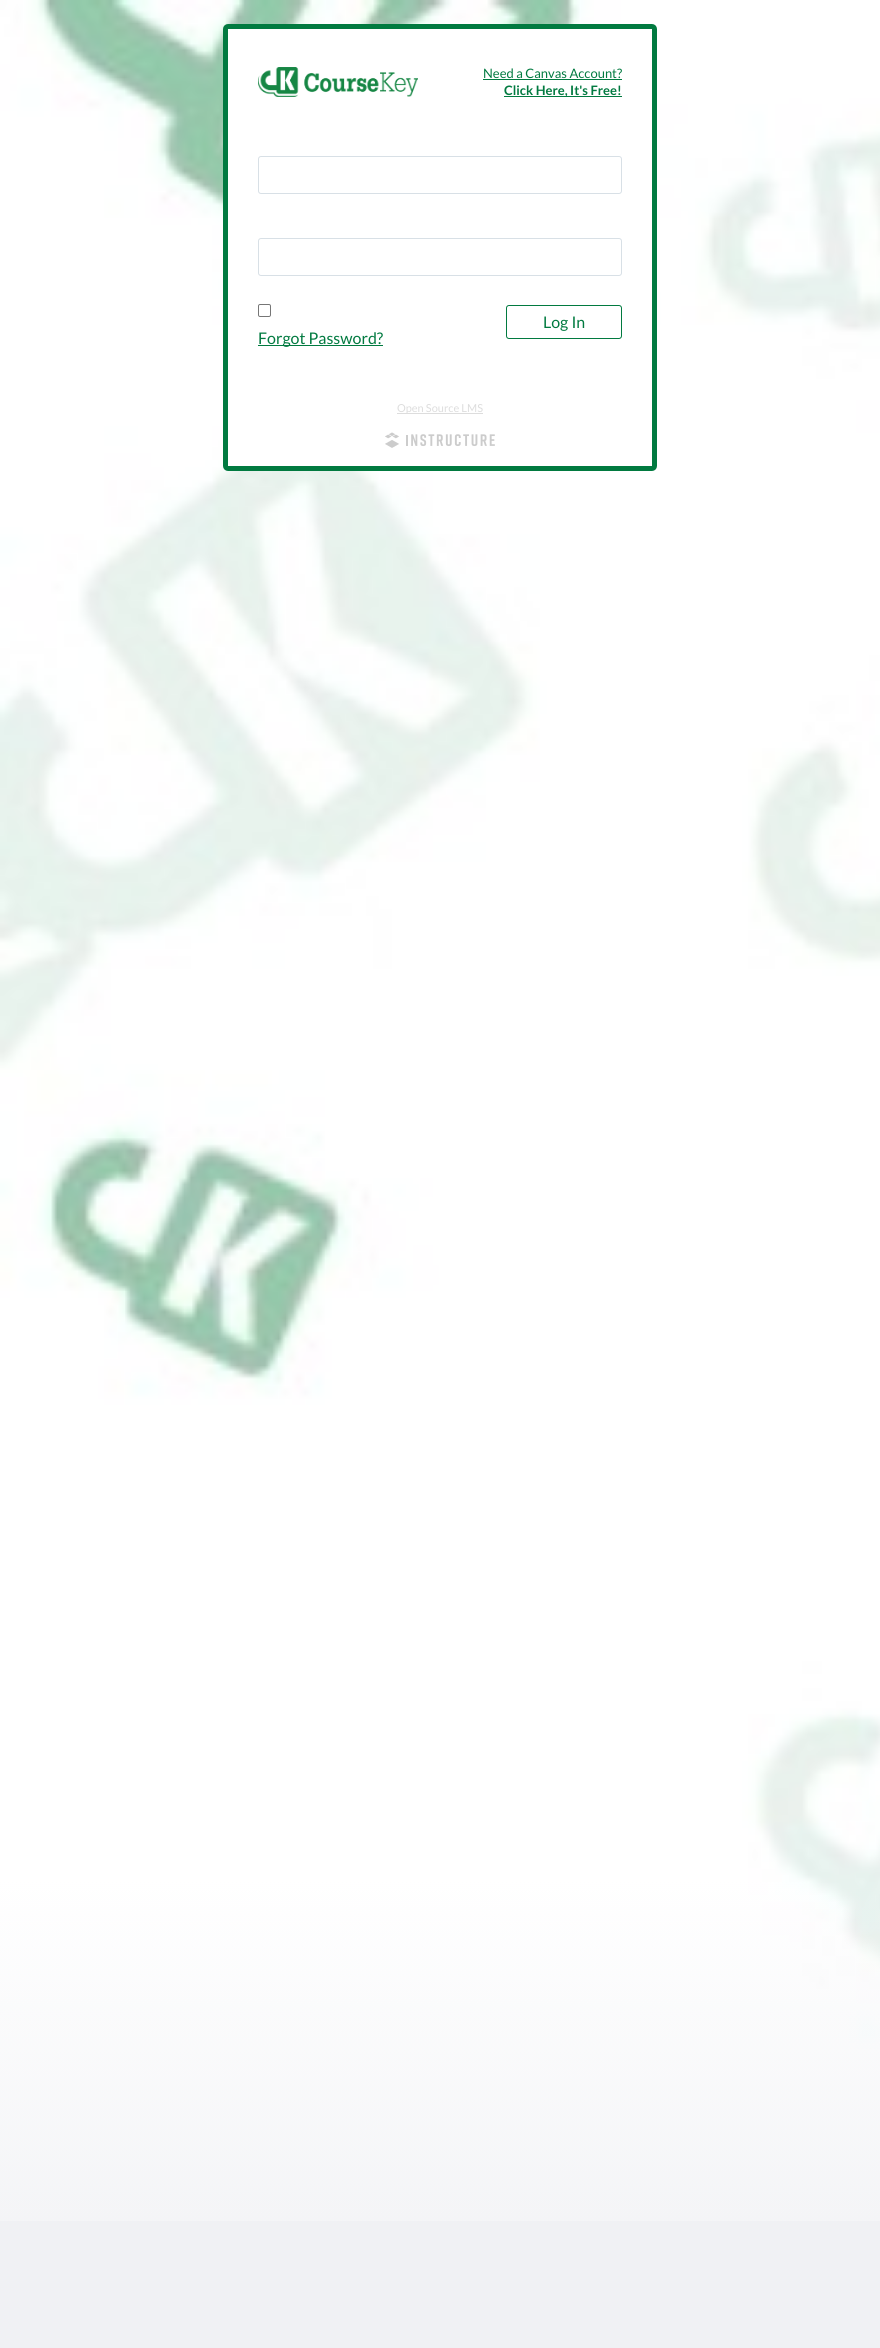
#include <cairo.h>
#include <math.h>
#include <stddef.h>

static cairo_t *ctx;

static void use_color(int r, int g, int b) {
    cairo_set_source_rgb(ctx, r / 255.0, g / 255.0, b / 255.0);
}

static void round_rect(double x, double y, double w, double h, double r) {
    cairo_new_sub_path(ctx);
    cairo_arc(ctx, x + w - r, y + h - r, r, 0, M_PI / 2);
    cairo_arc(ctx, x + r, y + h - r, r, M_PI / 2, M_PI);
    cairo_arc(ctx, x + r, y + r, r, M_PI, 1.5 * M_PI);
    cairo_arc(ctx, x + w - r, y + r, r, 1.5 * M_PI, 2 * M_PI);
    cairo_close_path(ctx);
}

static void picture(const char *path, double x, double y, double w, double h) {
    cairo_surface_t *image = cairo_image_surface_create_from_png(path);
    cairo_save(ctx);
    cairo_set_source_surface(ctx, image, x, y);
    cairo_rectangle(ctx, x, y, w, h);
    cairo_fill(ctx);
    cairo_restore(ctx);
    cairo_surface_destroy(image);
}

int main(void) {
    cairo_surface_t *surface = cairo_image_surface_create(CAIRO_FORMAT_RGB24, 880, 2348);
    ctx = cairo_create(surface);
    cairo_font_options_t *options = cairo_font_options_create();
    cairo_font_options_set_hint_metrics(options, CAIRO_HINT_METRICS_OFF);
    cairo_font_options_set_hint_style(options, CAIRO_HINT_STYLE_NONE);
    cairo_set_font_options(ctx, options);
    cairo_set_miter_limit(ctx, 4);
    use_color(240, 241, 244);
    cairo_paint(ctx);
    picture("img1.png", 0, 0, 880, 2221);
    use_color(255, 255, 255);
    round_rect(225.5, 26.5, 429, 442, 2.5);
    cairo_fill_preserve(ctx);
    use_color(1, 122, 64);
    cairo_set_line_width(ctx, 5);
    cairo_stroke(ctx);
    picture("img2.png", 258, 67, 160, 30);
    cairo_select_font_face(ctx, "Lato", CAIRO_FONT_SLANT_NORMAL, CAIRO_FONT_WEIGHT_NORMAL);
    cairo_set_font_size(ctx, 13);
    cairo_move_to(ctx, 483, 78);
    cairo_show_text(ctx, "Need a Canvas Account?");
    cairo_rectangle(ctx, 483, 79, 139, 1);
    cairo_fill(ctx);
    cairo_rectangle(ctx, 504, 96, 118, 1);
    cairo_fill(ctx);
    cairo_select_font_face(ctx, "Lato", CAIRO_FONT_SLANT_NORMAL, CAIRO_FONT_WEIGHT_BOLD);
    cairo_move_to(ctx, 504, 95);
    cairo_show_text(ctx, "Click Here, It's Free!");
    round_rect(258.5, 156.5, 363, 37, 2.5);
    use_color(216, 224, 230);
    cairo_set_line_width(ctx, 1);
    cairo_stroke(ctx);
    round_rect(258.5, 238.5, 363, 37, 2.5);
    cairo_stroke(ctx);
    round_rect(506.5, 305.5, 115, 33, 2.5);
    use_color(1, 122, 64);
    cairo_stroke(ctx);
    cairo_select_font_face(ctx, "Lato", CAIRO_FONT_SLANT_NORMAL, CAIRO_FONT_WEIGHT_NORMAL);
    cairo_set_font_size(ctx, 16);
    cairo_move_to(ctx, 543, 328);
    cairo_show_text(ctx, "Log In");
    round_rect(258.5, 304.5, 12, 12, 1.5);
    use_color(118, 118, 118);
    cairo_stroke(ctx);
    use_color(1, 122, 64);
    cairo_rectangle(ctx, 258, 345, 125, 1);
    cairo_fill(ctx);
    cairo_move_to(ctx, 258, 344);
    cairo_show_text(ctx, "Forgot Password?");
    use_color(221, 221, 221);
    cairo_rectangle(ctx, 397, 413, 86, 1);
    cairo_fill(ctx);
    cairo_set_font_size(ctx, 11);
    cairo_move_to(ctx, 397, 412);
    cairo_show_text(ctx, "Open Source LMS");
    picture("img3.png", 385, 432, 110, 16);
    cairo_surface_write_to_png(surface, "result.png");
    cairo_font_options_destroy(options);
    cairo_destroy(ctx);
    cairo_surface_destroy(surface);
    return 0;
}
